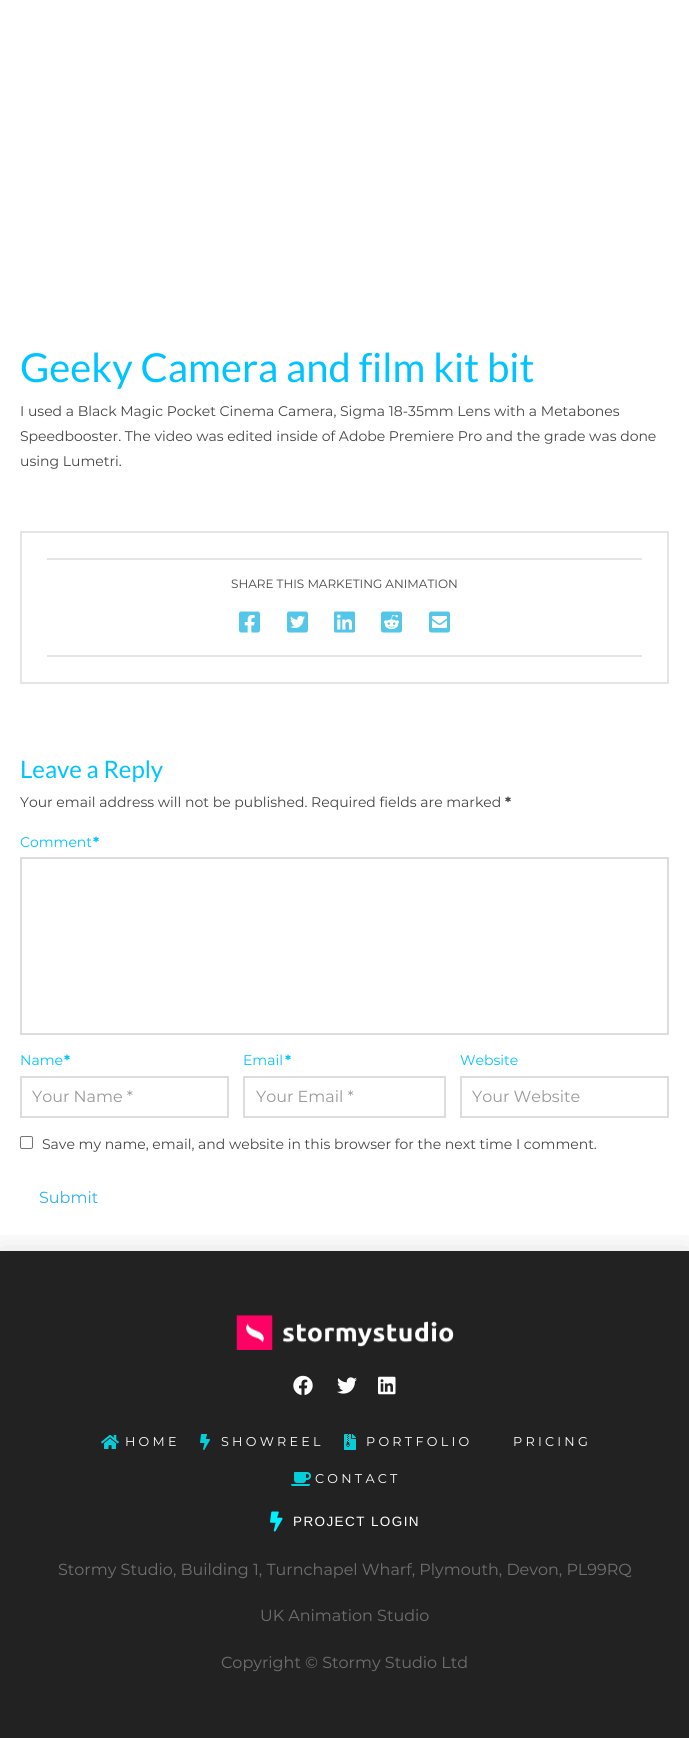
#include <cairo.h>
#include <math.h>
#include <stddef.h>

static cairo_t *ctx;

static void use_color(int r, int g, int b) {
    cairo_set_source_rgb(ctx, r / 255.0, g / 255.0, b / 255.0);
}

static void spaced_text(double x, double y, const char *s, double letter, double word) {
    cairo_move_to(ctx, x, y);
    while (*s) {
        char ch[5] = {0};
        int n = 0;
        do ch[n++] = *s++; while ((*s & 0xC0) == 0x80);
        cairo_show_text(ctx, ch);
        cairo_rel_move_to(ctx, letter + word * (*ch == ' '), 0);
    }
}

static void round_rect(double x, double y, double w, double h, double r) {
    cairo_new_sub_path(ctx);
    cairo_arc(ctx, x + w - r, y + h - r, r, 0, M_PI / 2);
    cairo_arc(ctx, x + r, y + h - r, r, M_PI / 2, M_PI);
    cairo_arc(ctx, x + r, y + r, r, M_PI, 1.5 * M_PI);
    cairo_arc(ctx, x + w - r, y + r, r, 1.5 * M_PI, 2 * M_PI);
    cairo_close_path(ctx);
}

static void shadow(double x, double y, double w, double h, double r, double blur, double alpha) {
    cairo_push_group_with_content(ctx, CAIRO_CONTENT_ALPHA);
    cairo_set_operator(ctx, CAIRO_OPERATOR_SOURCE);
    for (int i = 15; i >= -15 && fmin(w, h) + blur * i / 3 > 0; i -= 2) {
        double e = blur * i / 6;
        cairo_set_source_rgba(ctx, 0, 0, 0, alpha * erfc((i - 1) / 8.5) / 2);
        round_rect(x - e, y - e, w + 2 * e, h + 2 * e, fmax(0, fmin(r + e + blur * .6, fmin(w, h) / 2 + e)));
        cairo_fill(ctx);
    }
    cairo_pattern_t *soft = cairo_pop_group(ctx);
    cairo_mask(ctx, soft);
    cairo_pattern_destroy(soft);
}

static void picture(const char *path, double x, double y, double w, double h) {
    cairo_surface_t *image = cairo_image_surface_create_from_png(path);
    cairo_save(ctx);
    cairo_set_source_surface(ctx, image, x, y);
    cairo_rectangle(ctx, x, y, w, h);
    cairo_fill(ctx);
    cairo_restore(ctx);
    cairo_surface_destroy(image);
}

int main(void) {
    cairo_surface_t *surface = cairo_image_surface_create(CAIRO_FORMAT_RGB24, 689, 1738);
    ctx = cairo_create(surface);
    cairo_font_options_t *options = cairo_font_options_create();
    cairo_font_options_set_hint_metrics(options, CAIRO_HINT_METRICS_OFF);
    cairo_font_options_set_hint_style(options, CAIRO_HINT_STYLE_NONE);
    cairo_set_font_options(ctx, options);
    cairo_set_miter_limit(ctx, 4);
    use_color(255, 255, 255);
    cairo_paint(ctx);
    cairo_select_font_face(ctx, "Lato", CAIRO_FONT_SLANT_NORMAL, CAIRO_FONT_WEIGHT_NORMAL);
    cairo_set_font_size(ctx, 40);
    use_color(0, 195, 255);
    cairo_move_to(ctx, 20, 382);
    cairo_show_text(ctx, "Geeky Camera and film kit bit");
    cairo_select_font_face(ctx, "Montserrat", CAIRO_FONT_SLANT_NORMAL, CAIRO_FONT_WEIGHT_NORMAL);
    cairo_set_font_size(ctx, 14);
    use_color(69, 69, 69);
    cairo_move_to(ctx, 20, 416);
    cairo_show_text(ctx, "I used a Black Magic Pocket Cinema Camera, Sigma 18-35mm Lens with a Metabones");
    cairo_move_to(ctx, 20, 441);
    cairo_show_text(ctx, "Speedbooster. The video was edited inside of Adobe Premiere Pro and the grade was done");
    cairo_move_to(ctx, 20, 466);
    cairo_show_text(ctx, "using Lumetri.");
    cairo_rectangle(ctx, 21, 532, 647, 151);
    use_color(229, 229, 229);
    cairo_stroke(ctx);
    cairo_rectangle(ctx, 47, 558, 595, 2);
    cairo_fill(ctx);
    cairo_rectangle(ctx, 47, 655, 595, 2);
    cairo_fill(ctx);
    cairo_set_font_size(ctx, 12);
    use_color(69, 69, 69);
    cairo_move_to(ctx, 231, 588);
    cairo_show_text(ctx, "SHARE THIS MARKETING ANIMATION");
    picture("img1.png", 239, 611, 21, 22);
    picture("img2.png", 287, 611, 21, 22);
    picture("img3.png", 334, 611, 21, 22);
    picture("img4.png", 381, 611, 21, 22);
    picture("img5.png", 429, 611, 21, 22);
    cairo_select_font_face(ctx, "Lato", CAIRO_FONT_SLANT_NORMAL, CAIRO_FONT_WEIGHT_NORMAL);
    cairo_set_font_size(ctx, 24);
    use_color(0, 195, 255);
    cairo_move_to(ctx, 20, 778);
    cairo_show_text(ctx, "Leave a Reply");
    cairo_select_font_face(ctx, "Montserrat", CAIRO_FONT_SLANT_NORMAL, CAIRO_FONT_WEIGHT_NORMAL);
    cairo_set_font_size(ctx, 14);
    use_color(69, 69, 69);
    cairo_move_to(ctx, 20, 807);
    cairo_show_text(ctx, "Your email address will not be published. Required fields are marked");
    cairo_select_font_face(ctx, "Montserrat", CAIRO_FONT_SLANT_NORMAL, CAIRO_FONT_WEIGHT_BOLD);
    cairo_move_to(ctx, 505, 807);
    cairo_show_text(ctx, "*");
    cairo_select_font_face(ctx, "Montserrat", CAIRO_FONT_SLANT_NORMAL, CAIRO_FONT_WEIGHT_NORMAL);
    use_color(0, 195, 255);
    cairo_move_to(ctx, 20, 847);
    cairo_show_text(ctx, "Comment");
    cairo_select_font_face(ctx, "Montserrat", CAIRO_FONT_SLANT_NORMAL, CAIRO_FONT_WEIGHT_BOLD);
    cairo_move_to(ctx, 93, 847);
    cairo_show_text(ctx, "*");
    cairo_rectangle(ctx, 21, 858, 647, 176);
    use_color(221, 221, 221);
    cairo_stroke(ctx);
    cairo_select_font_face(ctx, "Montserrat", CAIRO_FONT_SLANT_NORMAL, CAIRO_FONT_WEIGHT_NORMAL);
    use_color(0, 195, 255);
    cairo_move_to(ctx, 20, 1065);
    cairo_show_text(ctx, "Name");
    cairo_select_font_face(ctx, "Montserrat", CAIRO_FONT_SLANT_NORMAL, CAIRO_FONT_WEIGHT_BOLD);
    cairo_move_to(ctx, 64, 1065);
    cairo_show_text(ctx, "*");
    cairo_rectangle(ctx, 21, 1077, 207, 40);
    use_color(221, 221, 221);
    cairo_stroke(ctx);
    cairo_select_font_face(ctx, "Montserrat", CAIRO_FONT_SLANT_NORMAL, CAIRO_FONT_WEIGHT_NORMAL);
    cairo_set_font_size(ctx, 16);
    use_color(153, 153, 153);
    cairo_move_to(ctx, 32, 1102);
    cairo_show_text(ctx, "Your Name *");
    cairo_set_font_size(ctx, 14);
    use_color(0, 195, 255);
    cairo_move_to(ctx, 243, 1065);
    cairo_show_text(ctx, "Email");
    cairo_select_font_face(ctx, "Montserrat", CAIRO_FONT_SLANT_NORMAL, CAIRO_FONT_WEIGHT_BOLD);
    cairo_move_to(ctx, 285, 1065);
    cairo_show_text(ctx, "*");
    cairo_rectangle(ctx, 244, 1077, 201, 40);
    use_color(221, 221, 221);
    cairo_stroke(ctx);
    cairo_select_font_face(ctx, "Montserrat", CAIRO_FONT_SLANT_NORMAL, CAIRO_FONT_WEIGHT_NORMAL);
    cairo_set_font_size(ctx, 16);
    use_color(153, 153, 153);
    cairo_move_to(ctx, 256, 1102);
    cairo_show_text(ctx, "Your Email *");
    cairo_set_font_size(ctx, 14);
    use_color(0, 195, 255);
    cairo_move_to(ctx, 460, 1065);
    cairo_show_text(ctx, "Website");
    cairo_rectangle(ctx, 461, 1077, 207, 40);
    use_color(221, 221, 221);
    cairo_stroke(ctx);
    cairo_set_font_size(ctx, 16);
    use_color(153, 153, 153);
    cairo_move_to(ctx, 472, 1102);
    cairo_show_text(ctx, "Your Website");
    round_rect(20.5, 1136.5, 12, 12, 1.5);
    use_color(118, 118, 118);
    cairo_set_line_width(ctx, 1);
    cairo_stroke(ctx);
    cairo_set_font_size(ctx, 14);
    use_color(69, 69, 69);
    cairo_move_to(ctx, 42, 1149);
    cairo_show_text(ctx, "Save my name, email, and website in this browser for the next time I comment.");
    cairo_set_font_size(ctx, 16);
    use_color(43, 176, 242);
    cairo_move_to(ctx, 39, 1203);
    cairo_show_text(ctx, "Submit");
    use_color(34, 34, 34);
    cairo_rectangle(ctx, 0, 1251, 689, 487);
    cairo_fill(ctx);
    cairo_save(ctx);
    cairo_rectangle(ctx, 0, 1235, 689, 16);
    cairo_clip(ctx);
    use_color(0, 0, 0);
    shadow(0, 1253, 689, 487, 0, 16, 0.15);
    cairo_restore(ctx);
    picture("img6.png", 236, 1315, 218, 35);
    picture("img7.png", 293, 1375, 20, 20);
    picture("img8.png", 337, 1377, 20, 17);
    picture("img9.png", 378, 1376, 18, 19);
    picture("img10.png", 101, 1435, 18, 14);
    cairo_set_font_size(ctx, 12.75);
    use_color(255, 255, 255);
    spaced_text(125, 1446, "HOME", 3.25, 0);
    picture("img11.png", 200, 1434, 10, 16);
    spaced_text(221, 1446, "SHOWREEL", 3.25, 0);
    picture("img12.png", 344, 1434, 12, 16);
    spaced_text(366, 1446, "PORTFOLIO", 3.25, 0);
    spaced_text(513, 1446, "PRICING", 3.25, 0);
    picture("img13.png", 291, 1472, 20, 14);
    spaced_text(315, 1483, "CONTACT", 3.25, 0);
    picture("img14.png", 270, 1511, 13, 21);
    cairo_select_font_face(ctx, "Liberation Sans", CAIRO_FONT_SLANT_NORMAL, CAIRO_FONT_WEIGHT_NORMAL);
    cairo_set_font_size(ctx, 13.5);
    spaced_text(293, 1526, "PROJECT LOGIN", 1.4, 0);
    cairo_select_font_face(ctx, "Montserrat", CAIRO_FONT_SLANT_NORMAL, CAIRO_FONT_WEIGHT_NORMAL);
    cairo_set_font_size(ctx, 16);
    use_color(111, 111, 111);
    cairo_move_to(ctx, 58, 1575);
    cairo_show_text(ctx, "Stormy Studio, Building 1, Turnchapel Wharf, Plymouth, Devon, PL99RQ");
    cairo_move_to(ctx, 260, 1621);
    cairo_show_text(ctx, "UK Animation Studio");
    cairo_move_to(ctx, 221, 1668);
    cairo_show_text(ctx, "Copyright © Stormy Studio Ltd");
    cairo_surface_write_to_png(surface, "result.png");
    cairo_font_options_destroy(options);
    cairo_destroy(ctx);
    cairo_surface_destroy(surface);
    return 0;
}
